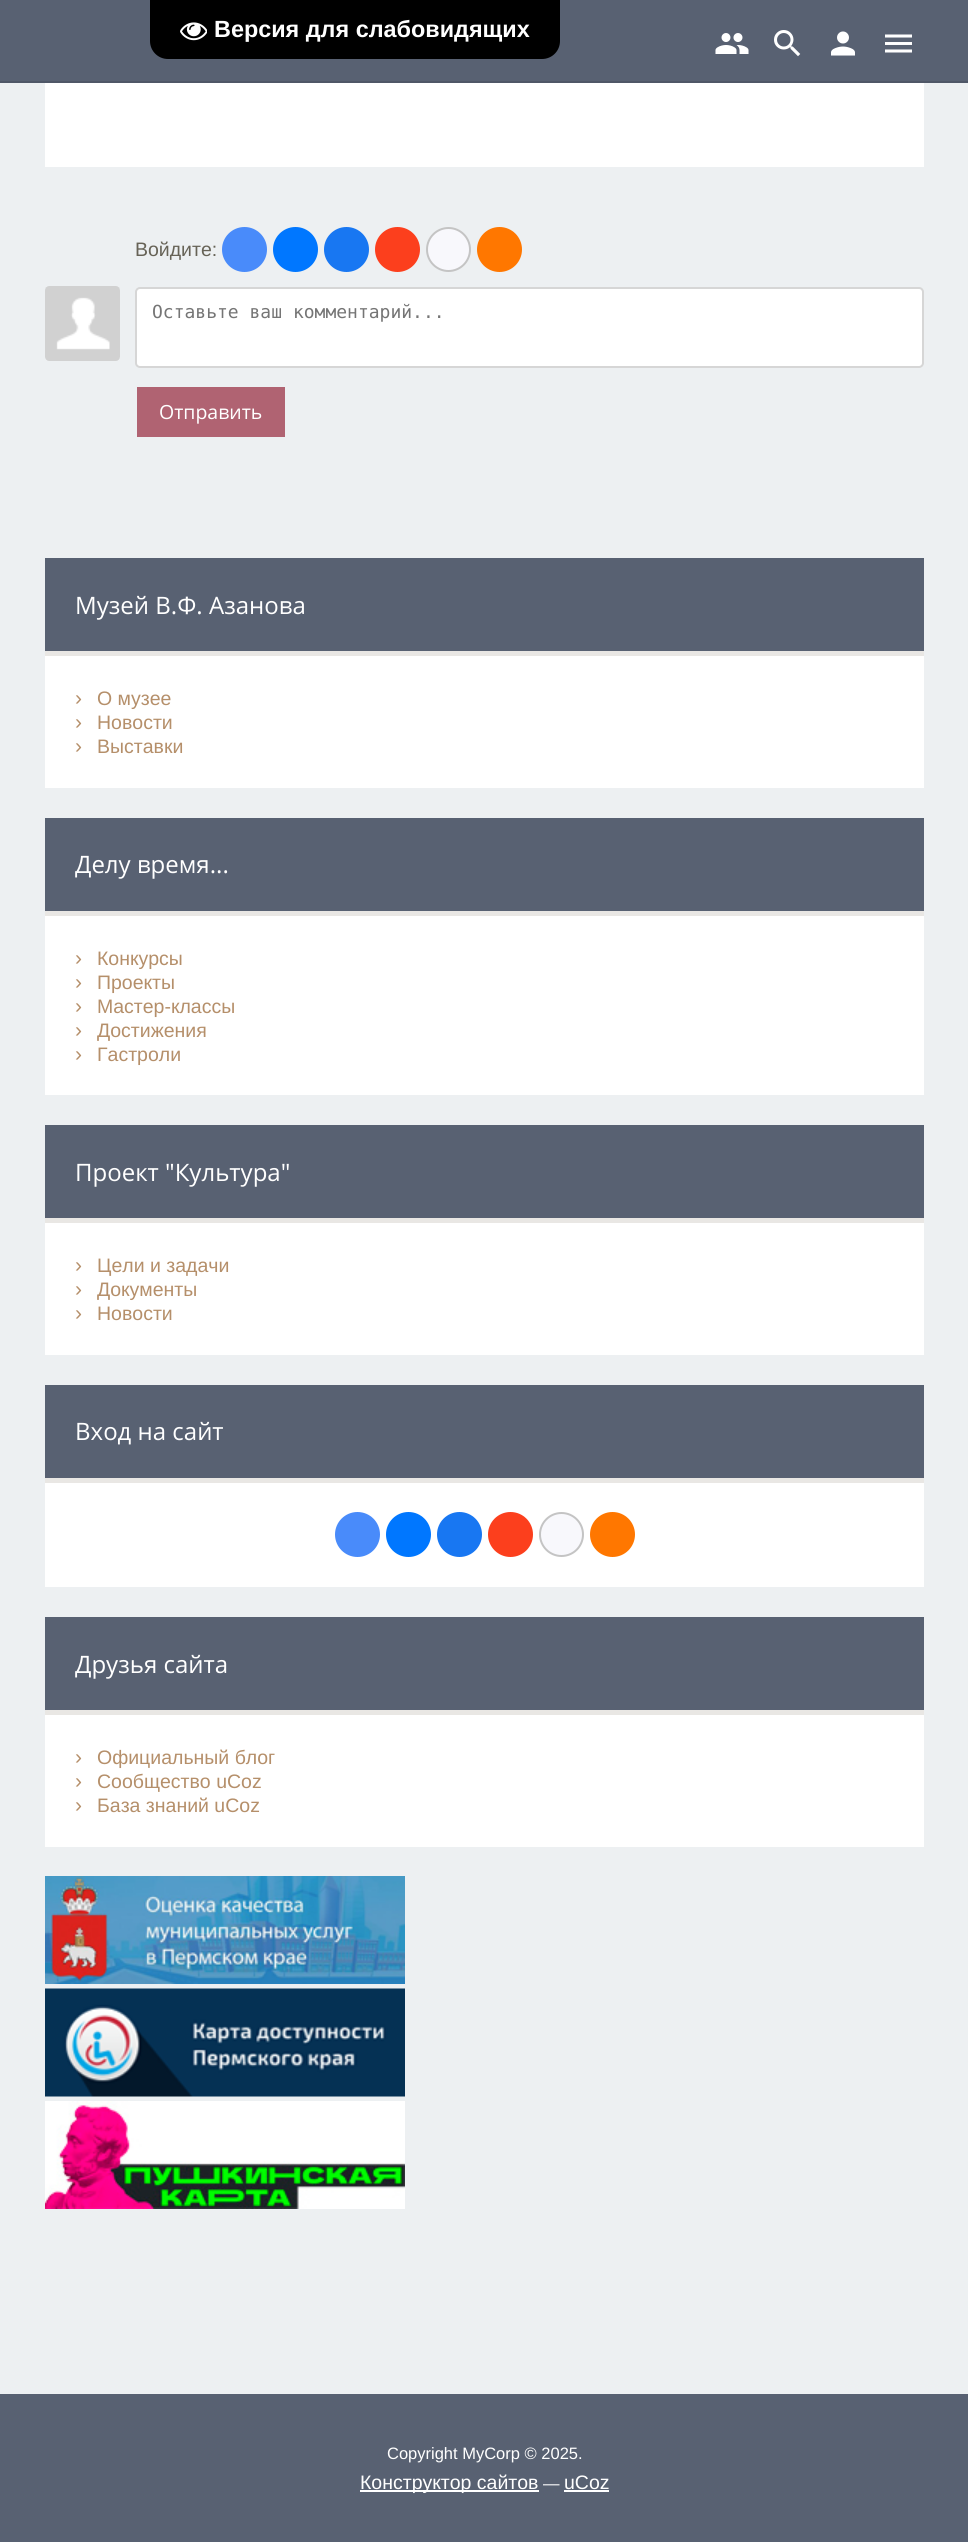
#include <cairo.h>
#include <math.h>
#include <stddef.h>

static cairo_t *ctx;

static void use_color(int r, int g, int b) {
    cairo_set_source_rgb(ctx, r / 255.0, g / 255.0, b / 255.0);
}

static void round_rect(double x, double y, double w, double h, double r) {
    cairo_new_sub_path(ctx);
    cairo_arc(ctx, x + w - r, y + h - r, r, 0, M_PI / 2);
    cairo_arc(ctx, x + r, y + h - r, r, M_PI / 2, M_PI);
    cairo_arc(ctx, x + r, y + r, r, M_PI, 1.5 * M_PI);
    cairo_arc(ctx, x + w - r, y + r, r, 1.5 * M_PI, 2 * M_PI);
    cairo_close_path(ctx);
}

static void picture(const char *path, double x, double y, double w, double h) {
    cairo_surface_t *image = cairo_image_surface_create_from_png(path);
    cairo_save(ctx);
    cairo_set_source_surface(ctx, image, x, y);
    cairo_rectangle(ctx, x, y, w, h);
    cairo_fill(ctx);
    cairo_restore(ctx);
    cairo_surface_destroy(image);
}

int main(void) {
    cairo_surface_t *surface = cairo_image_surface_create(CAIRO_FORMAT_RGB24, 968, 2542);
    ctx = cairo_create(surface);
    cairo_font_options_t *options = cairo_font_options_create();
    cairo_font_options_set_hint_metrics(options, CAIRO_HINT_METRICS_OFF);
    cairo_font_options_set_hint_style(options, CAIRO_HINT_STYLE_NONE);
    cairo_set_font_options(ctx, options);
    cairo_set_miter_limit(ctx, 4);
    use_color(237, 240, 242);
    cairo_paint(ctx);
    use_color(88, 97, 114);
    cairo_rectangle(ctx, 0, 0, 968, 81);
    cairo_fill(ctx);
    use_color(79, 87, 103);
    cairo_rectangle(ctx, 0, 81, 968, 2);
    cairo_fill(ctx);
    picture("img1.png", 715, 33, 34, 21);
    picture("img2.png", 774, 30, 27, 27);
    picture("img3.png", 831, 31, 24, 25);
    picture("img4.png", 885, 34, 27, 19);
    use_color(0, 0, 0);
    cairo_new_path(ctx);
    cairo_move_to(ctx, 150, 0);
    cairo_line_to(ctx, 560, 0);
    cairo_line_to(ctx, 560, 41);
    cairo_curve_to(ctx, 560, 51, 552, 59, 542, 59);
    cairo_line_to(ctx, 168, 59);
    cairo_curve_to(ctx, 158, 59, 150, 51, 150, 41);
    cairo_close_path(ctx);
    cairo_fill(ctx);
    picture("img5.png", 180, 22, 27, 19);
    cairo_select_font_face(ctx, "Liberation Sans", CAIRO_FONT_SLANT_NORMAL, CAIRO_FONT_WEIGHT_BOLD);
    cairo_set_font_size(ctx, 23.4);
    use_color(255, 255, 255);
    cairo_move_to(ctx, 214, 37);
    cairo_show_text(ctx, "Версия для слабовидящих");
    cairo_rectangle(ctx, 45, 83, 879, 84);
    cairo_fill(ctx);
    cairo_select_font_face(ctx, "Liberation Sans", CAIRO_FONT_SLANT_NORMAL, CAIRO_FONT_WEIGHT_NORMAL);
    cairo_set_font_size(ctx, 19.5);
    use_color(103, 99, 87);
    cairo_move_to(ctx, 135, 256);
    cairo_show_text(ctx, "Войдите:");
    use_color(73, 139, 250);
    cairo_new_path(ctx);
    cairo_arc(ctx, 244.5, 249.5, 22.5, 0, 2 * M_PI);
    cairo_fill(ctx);
    use_color(0, 119, 255);
    cairo_arc(ctx, 295.5, 249.5, 22.5, 0, 2 * M_PI);
    cairo_fill(ctx);
    use_color(24, 119, 242);
    cairo_arc(ctx, 346.5, 249.5, 22.5, 0, 2 * M_PI);
    cairo_fill(ctx);
    use_color(252, 63, 29);
    cairo_arc(ctx, 397.5, 249.5, 22.5, 0, 2 * M_PI);
    cairo_fill(ctx);
    use_color(248, 248, 252);
    cairo_arc(ctx, 448.5, 249.5, 21.5, 0, 2 * M_PI);
    cairo_fill_preserve(ctx);
    use_color(196, 196, 196);
    cairo_stroke(ctx);
    use_color(255, 119, 0);
    cairo_arc(ctx, 499.5, 249.5, 22.5, 0, 2 * M_PI);
    cairo_fill(ctx);
    picture("img6.png", 45, 286, 75, 75);
    use_color(255, 255, 255);
    round_rect(136, 288, 787, 79, 4);
    cairo_fill_preserve(ctx);
    use_color(214, 214, 214);
    cairo_stroke(ctx);
    cairo_select_font_face(ctx, "DejaVu Sans Mono", CAIRO_FONT_SLANT_NORMAL, CAIRO_FONT_WEIGHT_NORMAL);
    cairo_set_font_size(ctx, 18);
    use_color(117, 117, 117);
    cairo_move_to(ctx, 152, 318);
    cairo_show_text(ctx, "Оставьте ваш комментарий...");
    use_color(176, 99, 114);
    cairo_rectangle(ctx, 137, 387, 148, 50);
    cairo_fill(ctx);
    cairo_select_font_face(ctx, "Open Sans", CAIRO_FONT_SLANT_NORMAL, CAIRO_FONT_WEIGHT_NORMAL);
    cairo_set_font_size(ctx, 19.5);
    use_color(255, 255, 255);
    cairo_move_to(ctx, 159, 419);
    cairo_show_text(ctx, "Отправить");
    cairo_rectangle(ctx, 45, 656, 879, 132);
    cairo_fill(ctx);
    use_color(88, 97, 114);
    cairo_rectangle(ctx, 45, 558, 879, 93);
    cairo_fill(ctx);
    use_color(233, 231, 228);
    cairo_rectangle(ctx, 45, 651, 879, 5);
    cairo_fill(ctx);
    cairo_set_font_size(ctx, 24);
    use_color(255, 255, 255);
    cairo_move_to(ctx, 75, 614);
    cairo_show_text(ctx, "Музей В.Ф. Азанова");
    cairo_select_font_face(ctx, "Liberation Sans", CAIRO_FONT_SLANT_NORMAL, CAIRO_FONT_WEIGHT_NORMAL);
    cairo_set_font_size(ctx, 21);
    use_color(181, 143, 106);
    cairo_move_to(ctx, 75, 705);
    cairo_show_text(ctx, "›");
    cairo_set_font_size(ctx, 19.5);
    cairo_move_to(ctx, 97, 705);
    cairo_show_text(ctx, "О музее");
    cairo_set_font_size(ctx, 21);
    cairo_move_to(ctx, 75, 729);
    cairo_show_text(ctx, "›");
    cairo_set_font_size(ctx, 19.5);
    cairo_move_to(ctx, 97, 729);
    cairo_show_text(ctx, "Новости");
    cairo_set_font_size(ctx, 21);
    cairo_move_to(ctx, 75, 753);
    cairo_show_text(ctx, "›");
    cairo_set_font_size(ctx, 19.5);
    cairo_move_to(ctx, 97, 753);
    cairo_show_text(ctx, "Выставки");
    use_color(255, 255, 255);
    cairo_rectangle(ctx, 45, 916, 879, 179);
    cairo_fill(ctx);
    use_color(88, 97, 114);
    cairo_rectangle(ctx, 45, 818, 879, 93);
    cairo_fill(ctx);
    use_color(233, 231, 228);
    cairo_rectangle(ctx, 45, 911, 879, 5);
    cairo_fill(ctx);
    cairo_select_font_face(ctx, "Open Sans", CAIRO_FONT_SLANT_NORMAL, CAIRO_FONT_WEIGHT_NORMAL);
    cairo_set_font_size(ctx, 24);
    use_color(255, 255, 255);
    cairo_move_to(ctx, 75, 873);
    cairo_show_text(ctx, "Делу время...");
    cairo_select_font_face(ctx, "Liberation Sans", CAIRO_FONT_SLANT_NORMAL, CAIRO_FONT_WEIGHT_NORMAL);
    cairo_set_font_size(ctx, 21);
    use_color(181, 143, 106);
    cairo_move_to(ctx, 75, 965);
    cairo_show_text(ctx, "›");
    cairo_set_font_size(ctx, 19.5);
    cairo_move_to(ctx, 97, 965);
    cairo_show_text(ctx, "Конкурсы");
    cairo_set_font_size(ctx, 21);
    cairo_move_to(ctx, 75, 989);
    cairo_show_text(ctx, "›");
    cairo_set_font_size(ctx, 19.5);
    cairo_move_to(ctx, 97, 989);
    cairo_show_text(ctx, "Проекты");
    cairo_set_font_size(ctx, 21);
    cairo_move_to(ctx, 75, 1013);
    cairo_show_text(ctx, "›");
    cairo_set_font_size(ctx, 19.5);
    cairo_move_to(ctx, 97, 1013);
    cairo_show_text(ctx, "Мастер-классы");
    cairo_set_font_size(ctx, 21);
    cairo_move_to(ctx, 75, 1037);
    cairo_show_text(ctx, "›");
    cairo_set_font_size(ctx, 19.5);
    cairo_move_to(ctx, 97, 1037);
    cairo_show_text(ctx, "Достижения");
    cairo_set_font_size(ctx, 21);
    cairo_move_to(ctx, 75, 1061);
    cairo_show_text(ctx, "›");
    cairo_set_font_size(ctx, 19.5);
    cairo_move_to(ctx, 97, 1061);
    cairo_show_text(ctx, "Гастроли");
    use_color(255, 255, 255);
    cairo_rectangle(ctx, 45, 1223, 879, 132);
    cairo_fill(ctx);
    use_color(88, 97, 114);
    cairo_rectangle(ctx, 45, 1125, 879, 93);
    cairo_fill(ctx);
    use_color(233, 231, 228);
    cairo_rectangle(ctx, 45, 1218, 879, 5);
    cairo_fill(ctx);
    cairo_select_font_face(ctx, "Open Sans", CAIRO_FONT_SLANT_NORMAL, CAIRO_FONT_WEIGHT_NORMAL);
    cairo_set_font_size(ctx, 24);
    use_color(255, 255, 255);
    cairo_move_to(ctx, 75, 1181);
    cairo_show_text(ctx, "Проект \"Культура\"");
    cairo_select_font_face(ctx, "Liberation Sans", CAIRO_FONT_SLANT_NORMAL, CAIRO_FONT_WEIGHT_NORMAL);
    cairo_set_font_size(ctx, 21);
    use_color(181, 143, 106);
    cairo_move_to(ctx, 75, 1272);
    cairo_show_text(ctx, "›");
    cairo_set_font_size(ctx, 19.5);
    cairo_move_to(ctx, 97, 1272);
    cairo_show_text(ctx, "Цели и задачи");
    cairo_set_font_size(ctx, 21);
    cairo_move_to(ctx, 75, 1296);
    cairo_show_text(ctx, "›");
    cairo_set_font_size(ctx, 19.5);
    cairo_move_to(ctx, 97, 1296);
    cairo_show_text(ctx, "Документы");
    cairo_set_font_size(ctx, 21);
    cairo_move_to(ctx, 75, 1320);
    cairo_show_text(ctx, "›");
    cairo_set_font_size(ctx, 19.5);
    cairo_move_to(ctx, 97, 1320);
    cairo_show_text(ctx, "Новости");
    use_color(255, 255, 255);
    cairo_rectangle(ctx, 45, 1483, 879, 104);
    cairo_fill(ctx);
    use_color(88, 97, 114);
    cairo_rectangle(ctx, 45, 1385, 879, 93);
    cairo_fill(ctx);
    use_color(233, 231, 228);
    cairo_rectangle(ctx, 45, 1478, 879, 5);
    cairo_fill(ctx);
    cairo_select_font_face(ctx, "Open Sans", CAIRO_FONT_SLANT_NORMAL, CAIRO_FONT_WEIGHT_NORMAL);
    cairo_set_font_size(ctx, 24);
    use_color(255, 255, 255);
    cairo_move_to(ctx, 75, 1440);
    cairo_show_text(ctx, "Вход на сайт");
    use_color(73, 139, 250);
    cairo_new_path(ctx);
    cairo_arc(ctx, 357.5, 1534.5, 22.5, 0, 2 * M_PI);
    cairo_fill(ctx);
    use_color(0, 119, 255);
    cairo_arc(ctx, 408.5, 1534.5, 22.5, 0, 2 * M_PI);
    cairo_fill(ctx);
    use_color(24, 119, 242);
    cairo_arc(ctx, 459.5, 1534.5, 22.5, 0, 2 * M_PI);
    cairo_fill(ctx);
    use_color(252, 63, 29);
    cairo_arc(ctx, 510.5, 1534.5, 22.5, 0, 2 * M_PI);
    cairo_fill(ctx);
    use_color(248, 248, 252);
    cairo_arc(ctx, 561.5, 1534.5, 21.5, 0, 2 * M_PI);
    cairo_fill_preserve(ctx);
    use_color(196, 196, 196);
    cairo_stroke(ctx);
    use_color(255, 119, 0);
    cairo_arc(ctx, 612.5, 1534.5, 22.5, 0, 2 * M_PI);
    cairo_fill(ctx);
    use_color(255, 255, 255);
    cairo_rectangle(ctx, 45, 1715, 879, 132);
    cairo_fill(ctx);
    use_color(88, 97, 114);
    cairo_rectangle(ctx, 45, 1617, 879, 93);
    cairo_fill(ctx);
    use_color(233, 231, 228);
    cairo_rectangle(ctx, 45, 1710, 879, 5);
    cairo_fill(ctx);
    use_color(255, 255, 255);
    cairo_move_to(ctx, 75, 1673);
    cairo_show_text(ctx, "Друзья сайта");
    cairo_select_font_face(ctx, "Liberation Sans", CAIRO_FONT_SLANT_NORMAL, CAIRO_FONT_WEIGHT_NORMAL);
    cairo_set_font_size(ctx, 21);
    use_color(181, 143, 106);
    cairo_move_to(ctx, 75, 1764);
    cairo_show_text(ctx, "›");
    cairo_set_font_size(ctx, 19.5);
    cairo_move_to(ctx, 97, 1764);
    cairo_show_text(ctx, "Официальный блог");
    cairo_set_font_size(ctx, 21);
    cairo_move_to(ctx, 75, 1788);
    cairo_show_text(ctx, "›");
    cairo_set_font_size(ctx, 19.5);
    cairo_move_to(ctx, 97, 1788);
    cairo_show_text(ctx, "Сообщество uCoz");
    cairo_set_font_size(ctx, 21);
    cairo_move_to(ctx, 75, 1812);
    cairo_show_text(ctx, "›");
    cairo_set_font_size(ctx, 19.5);
    cairo_move_to(ctx, 97, 1812);
    cairo_show_text(ctx, "База знаний uCoz");
    picture("img7.png", 45, 1876, 360, 108);
    picture("img8.png", 45, 1988, 360, 109);
    picture("img9.png", 45, 2101, 360, 108);
    use_color(88, 97, 114);
    cairo_rectangle(ctx, 0, 2394, 968, 148);
    cairo_fill(ctx);
    cairo_set_font_size(ctx, 16.5);
    use_color(255, 255, 255);
    cairo_move_to(ctx, 387, 2459);
    cairo_show_text(ctx, "Copyright MyCorp © 2025.");
    cairo_rectangle(ctx, 360, 2490, 179, 2);
    cairo_fill(ctx);
    cairo_set_font_size(ctx, 19.5);
    cairo_move_to(ctx, 360, 2489);
    cairo_show_text(ctx, "Конструктор сайтов");
    cairo_set_font_size(ctx, 16.5);
    cairo_move_to(ctx, 543, 2489);
    cairo_show_text(ctx, "—");
    cairo_rectangle(ctx, 564, 2490, 45, 2);
    cairo_fill(ctx);
    cairo_set_font_size(ctx, 19.5);
    cairo_move_to(ctx, 564, 2489);
    cairo_show_text(ctx, "uCoz");
    cairo_surface_write_to_png(surface, "result.png");
    cairo_font_options_destroy(options);
    cairo_destroy(ctx);
    cairo_surface_destroy(surface);
    return 0;
}
